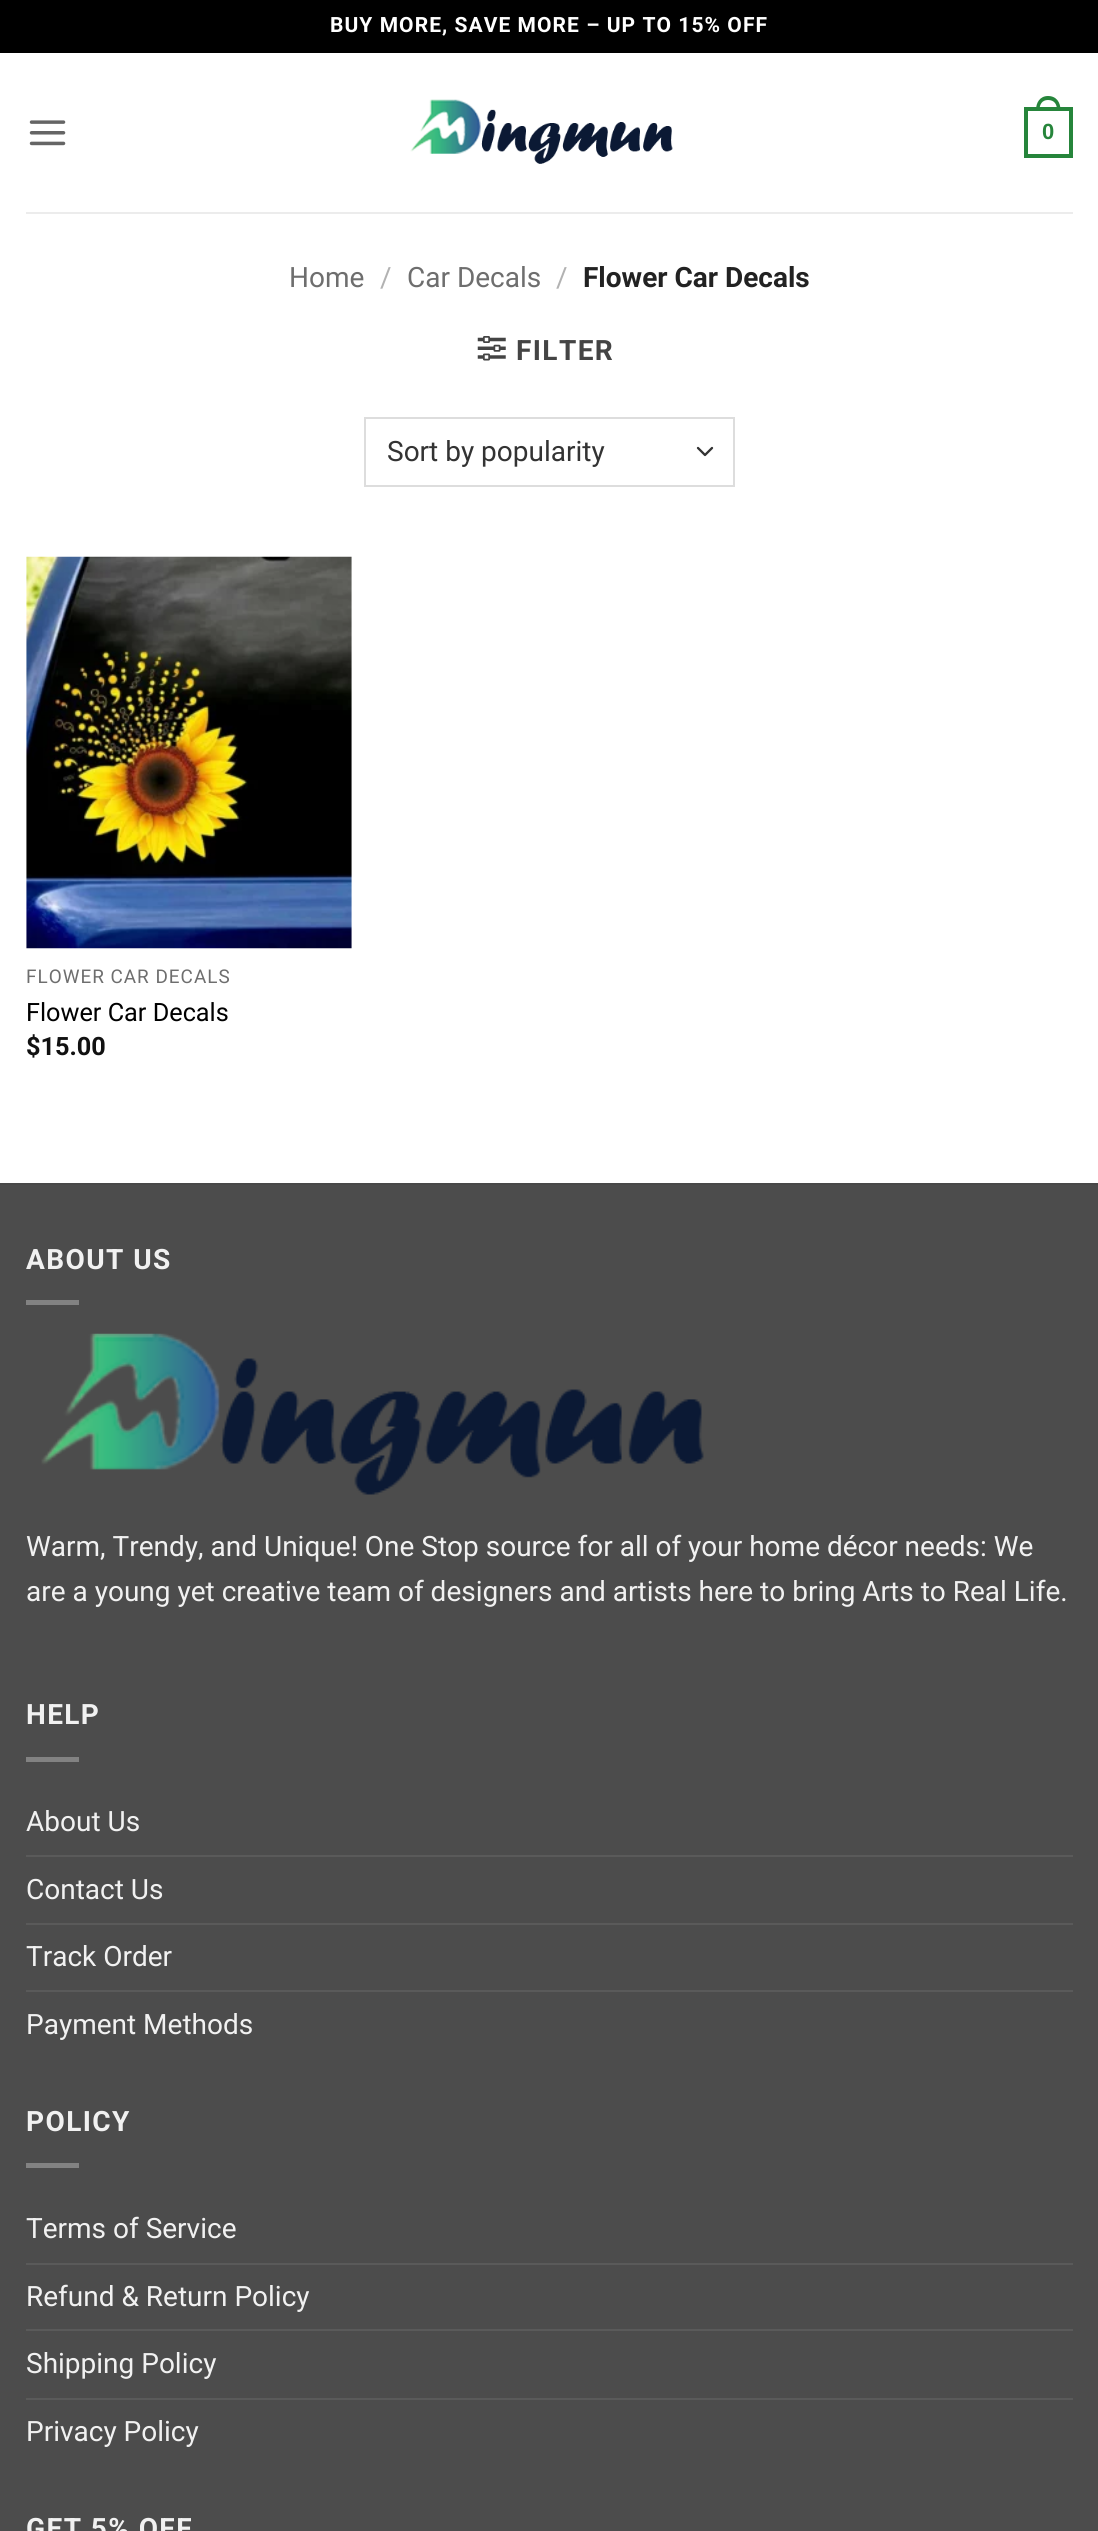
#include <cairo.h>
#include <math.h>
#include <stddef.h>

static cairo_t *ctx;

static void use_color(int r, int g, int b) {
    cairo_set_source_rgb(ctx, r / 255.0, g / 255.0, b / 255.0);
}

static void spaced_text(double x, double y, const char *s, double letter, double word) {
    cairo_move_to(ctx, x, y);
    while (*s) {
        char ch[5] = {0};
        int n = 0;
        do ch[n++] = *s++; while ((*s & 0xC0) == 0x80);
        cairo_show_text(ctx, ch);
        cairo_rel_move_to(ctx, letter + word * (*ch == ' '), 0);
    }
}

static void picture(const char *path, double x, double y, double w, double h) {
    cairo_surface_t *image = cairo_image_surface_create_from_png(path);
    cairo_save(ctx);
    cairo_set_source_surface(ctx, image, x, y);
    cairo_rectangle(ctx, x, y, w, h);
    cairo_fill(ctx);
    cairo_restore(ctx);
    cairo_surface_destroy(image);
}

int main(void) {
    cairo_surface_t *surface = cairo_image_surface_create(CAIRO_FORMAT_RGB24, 1098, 2531);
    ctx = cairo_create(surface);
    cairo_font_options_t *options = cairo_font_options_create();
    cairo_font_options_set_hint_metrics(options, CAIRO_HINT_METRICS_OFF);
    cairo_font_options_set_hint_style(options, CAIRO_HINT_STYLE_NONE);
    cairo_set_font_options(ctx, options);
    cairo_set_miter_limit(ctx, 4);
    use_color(255, 255, 255);
    cairo_paint(ctx);
    use_color(0, 0, 0);
    cairo_rectangle(ctx, 0, 0, 1098, 53);
    cairo_fill(ctx);
    cairo_select_font_face(ctx, "Roboto", CAIRO_FONT_SLANT_NORMAL, CAIRO_FONT_WEIGHT_BOLD);
    cairo_set_font_size(ctx, 21);
    use_color(255, 255, 255);
    spaced_text(330, 32, "BUY MORE, SAVE MORE – UP TO 15% OFF", 1.05, 0);
    picture("img1.png", 29, 120, 37, 26);
    picture("img2.png", 410, 99, 263, 65);
    cairo_rectangle(ctx, 1026, 109, 45, 47);
    use_color(38, 133, 59);
    cairo_set_line_width(ctx, 4);
    cairo_stroke(ctx);
    cairo_set_fill_rule(ctx, CAIRO_FILL_RULE_EVEN_ODD);
    cairo_new_path(ctx);
    cairo_move_to(ctx, 1048, 96);
    cairo_curve_to(ctx, 1056.5, 96, 1060.5, 102.5, 1060.5, 110);
    cairo_line_to(ctx, 1036, 110);
    cairo_curve_to(ctx, 1036, 102.5, 1040, 96, 1048, 96);
    cairo_close_path(ctx);
    cairo_move_to(ctx, 1048, 100);
    cairo_curve_to(ctx, 1054.5, 100, 1057, 104.5, 1057, 110);
    cairo_line_to(ctx, 1039.5, 110);
    cairo_curve_to(ctx, 1039.5, 104.5, 1042, 100, 1048, 100);
    cairo_close_path(ctx);
    cairo_fill(ctx);
    cairo_select_font_face(ctx, "Liberation Sans", CAIRO_FONT_SLANT_NORMAL, CAIRO_FONT_WEIGHT_BOLD);
    cairo_set_font_size(ctx, 22);
    cairo_move_to(ctx, 1042, 139);
    cairo_show_text(ctx, "0");
    use_color(236, 236, 236);
    cairo_rectangle(ctx, 26, 212, 1047, 2);
    cairo_fill(ctx);
    cairo_select_font_face(ctx, "Roboto", CAIRO_FONT_SLANT_NORMAL, CAIRO_FONT_WEIGHT_NORMAL);
    cairo_set_font_size(ctx, 28);
    use_color(110, 110, 110);
    cairo_move_to(ctx, 289, 287);
    cairo_show_text(ctx, "Home");
    use_color(178, 178, 178);
    cairo_move_to(ctx, 380, 287);
    cairo_show_text(ctx, "/");
    use_color(110, 110, 110);
    cairo_move_to(ctx, 407, 287);
    cairo_show_text(ctx, "Car Decals");
    use_color(178, 178, 178);
    cairo_move_to(ctx, 556, 287);
    cairo_show_text(ctx, "/");
    cairo_select_font_face(ctx, "Roboto", CAIRO_FONT_SLANT_NORMAL, CAIRO_FONT_WEIGHT_BOLD);
    use_color(34, 34, 34);
    cairo_move_to(ctx, 583, 287);
    cairo_show_text(ctx, "Flower Car Decals");
    picture("img3.png", 477, 336, 29, 25);
    use_color(68, 68, 68);
    spaced_text(516, 360, "FILTER", 1.4, 0);
    cairo_new_path(ctx);
    cairo_move_to(ctx, 698, 448);
    cairo_line_to(ctx, 705, 455);
    cairo_line_to(ctx, 712, 448);
    use_color(51, 51, 51);
    cairo_set_line_width(ctx, 2.3);
    cairo_set_line_cap(ctx, CAIRO_LINE_CAP_ROUND);
    cairo_set_line_join(ctx, CAIRO_LINE_JOIN_ROUND);
    cairo_stroke(ctx);
    cairo_rectangle(ctx, 365, 418, 369, 68);
    use_color(221, 221, 221);
    cairo_set_line_width(ctx, 2);
    cairo_set_line_cap(ctx, CAIRO_LINE_CAP_BUTT);
    cairo_set_line_join(ctx, CAIRO_LINE_JOIN_MITER);
    cairo_stroke(ctx);
    cairo_select_font_face(ctx, "Roboto", CAIRO_FONT_SLANT_NORMAL, CAIRO_FONT_WEIGHT_NORMAL);
    use_color(51, 51, 51);
    cairo_move_to(ctx, 387, 461);
    cairo_show_text(ctx, "Sort by popularity");
    picture("img4.png", 26, 556, 326, 393);
    cairo_set_font_size(ctx, 18.9);
    use_color(110, 110, 110);
    spaced_text(26, 983, "FLOWER CAR DECALS", 1, 0);
    cairo_set_font_size(ctx, 25.25);
    use_color(0, 0, 0);
    cairo_move_to(ctx, 26, 1021);
    cairo_show_text(ctx, "Flower Car Decals");
    cairo_select_font_face(ctx, "Roboto", CAIRO_FONT_SLANT_NORMAL, CAIRO_FONT_WEIGHT_BOLD);
    use_color(17, 17, 17);
    cairo_move_to(ctx, 26, 1055);
    cairo_show_text(ctx, "$15.00");
    use_color(76, 76, 76);
    cairo_rectangle(ctx, 0, 1185, 1098, 1346);
    cairo_fill(ctx);
    use_color(72, 72, 72);
    cairo_rectangle(ctx, 0, 1183, 1098, 2);
    cairo_fill(ctx);
    cairo_set_font_size(ctx, 28);
    use_color(241, 241, 241);
    spaced_text(26, 1269, "ABOUT US", 1.4, 0);
    use_color(130, 130, 130);
    cairo_rectangle(ctx, 26, 1300, 53, 5);
    cairo_fill(ctx);
    picture("img5.png", 41, 1333, 663, 162);
    cairo_select_font_face(ctx, "Roboto", CAIRO_FONT_SLANT_NORMAL, CAIRO_FONT_WEIGHT_NORMAL);
    use_color(241, 241, 241);
    cairo_move_to(ctx, 26, 1556);
    cairo_show_text(ctx, "Warm, Trendy, and Unique! One Stop source for all of your home décor needs: We");
    cairo_move_to(ctx, 26, 1601);
    cairo_show_text(ctx, "are a young yet creative team of designers and artists here to bring Arts to Real Life.");
    cairo_select_font_face(ctx, "Roboto", CAIRO_FONT_SLANT_NORMAL, CAIRO_FONT_WEIGHT_BOLD);
    spaced_text(26, 1724, "HELP", 1.4, 0);
    use_color(130, 130, 130);
    cairo_rectangle(ctx, 26, 1757, 53, 5);
    cairo_fill(ctx);
    cairo_select_font_face(ctx, "Roboto", CAIRO_FONT_SLANT_NORMAL, CAIRO_FONT_WEIGHT_NORMAL);
    use_color(241, 241, 241);
    cairo_move_to(ctx, 26, 1831);
    cairo_show_text(ctx, "About Us");
    use_color(90, 90, 90);
    cairo_rectangle(ctx, 26, 1855, 1047, 2);
    cairo_fill(ctx);
    use_color(241, 241, 241);
    cairo_move_to(ctx, 26, 1899);
    cairo_show_text(ctx, "Contact Us");
    use_color(90, 90, 90);
    cairo_rectangle(ctx, 26, 1923, 1047, 2);
    cairo_fill(ctx);
    use_color(241, 241, 241);
    cairo_move_to(ctx, 26, 1966);
    cairo_show_text(ctx, "Track Order");
    use_color(90, 90, 90);
    cairo_rectangle(ctx, 26, 1990, 1047, 2);
    cairo_fill(ctx);
    use_color(241, 241, 241);
    cairo_move_to(ctx, 26, 2034);
    cairo_show_text(ctx, "Payment Methods");
    cairo_select_font_face(ctx, "Roboto", CAIRO_FONT_SLANT_NORMAL, CAIRO_FONT_WEIGHT_BOLD);
    spaced_text(26, 2131, "POLICY", 1.4, 0);
    use_color(130, 130, 130);
    cairo_rectangle(ctx, 26, 2163, 53, 5);
    cairo_fill(ctx);
    cairo_select_font_face(ctx, "Roboto", CAIRO_FONT_SLANT_NORMAL, CAIRO_FONT_WEIGHT_NORMAL);
    use_color(241, 241, 241);
    cairo_move_to(ctx, 26, 2238);
    cairo_show_text(ctx, "Terms of Service");
    use_color(90, 90, 90);
    cairo_rectangle(ctx, 26, 2263, 1047, 2);
    cairo_fill(ctx);
    use_color(241, 241, 241);
    cairo_move_to(ctx, 26, 2306);
    cairo_show_text(ctx, "Refund & Return Policy");
    use_color(90, 90, 90);
    cairo_rectangle(ctx, 26, 2329, 1047, 2);
    cairo_fill(ctx);
    use_color(241, 241, 241);
    cairo_move_to(ctx, 26, 2373);
    cairo_show_text(ctx, "Shipping Policy");
    use_color(90, 90, 90);
    cairo_rectangle(ctx, 26, 2398, 1047, 2);
    cairo_fill(ctx);
    use_color(241, 241, 241);
    cairo_move_to(ctx, 26, 2441);
    cairo_show_text(ctx, "Privacy Policy");
    cairo_select_font_face(ctx, "Roboto", CAIRO_FONT_SLANT_NORMAL, CAIRO_FONT_WEIGHT_BOLD);
    spaced_text(26, 2538, "GET 5% OFF", 1.4, 0);
    cairo_surface_write_to_png(surface, "result.png");
    cairo_font_options_destroy(options);
    cairo_destroy(ctx);
    cairo_surface_destroy(surface);
    return 0;
}
